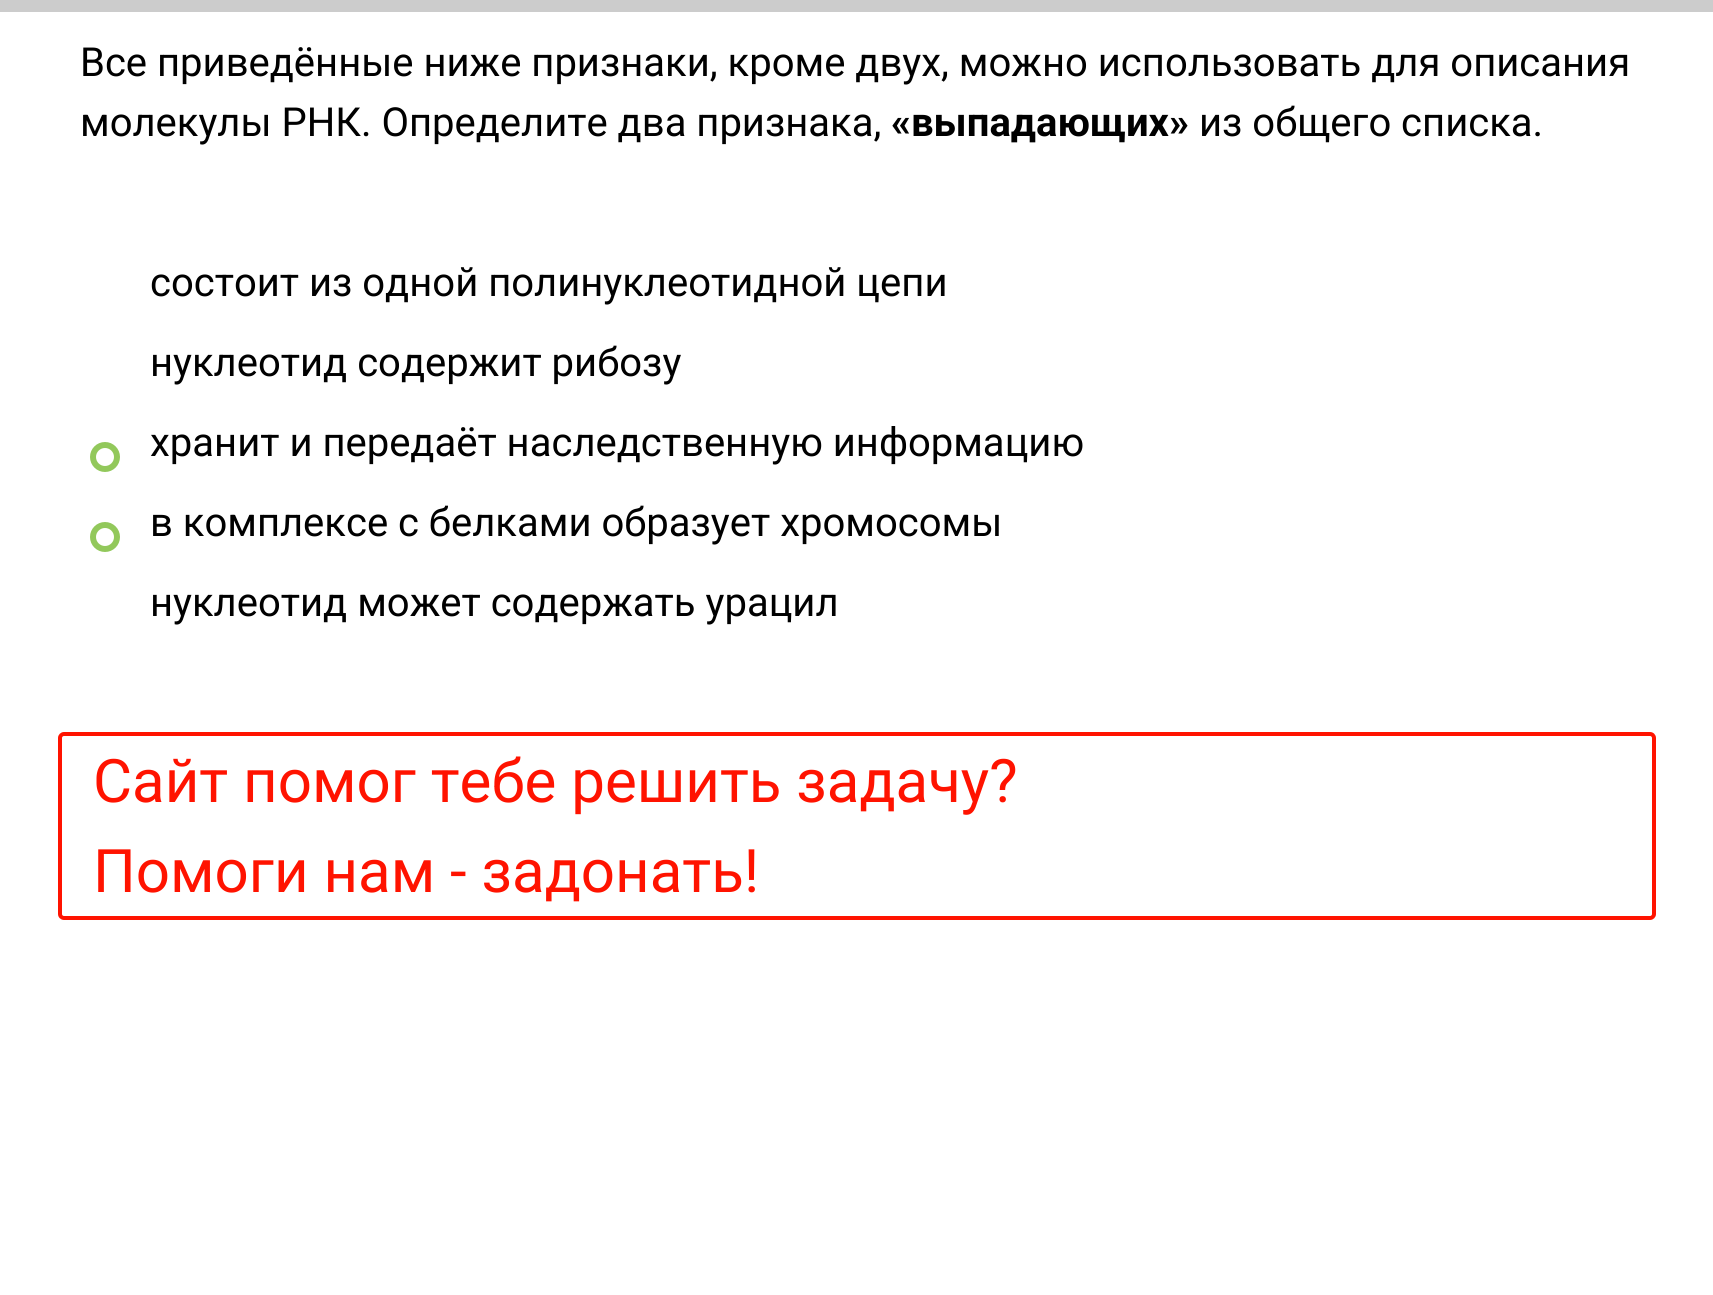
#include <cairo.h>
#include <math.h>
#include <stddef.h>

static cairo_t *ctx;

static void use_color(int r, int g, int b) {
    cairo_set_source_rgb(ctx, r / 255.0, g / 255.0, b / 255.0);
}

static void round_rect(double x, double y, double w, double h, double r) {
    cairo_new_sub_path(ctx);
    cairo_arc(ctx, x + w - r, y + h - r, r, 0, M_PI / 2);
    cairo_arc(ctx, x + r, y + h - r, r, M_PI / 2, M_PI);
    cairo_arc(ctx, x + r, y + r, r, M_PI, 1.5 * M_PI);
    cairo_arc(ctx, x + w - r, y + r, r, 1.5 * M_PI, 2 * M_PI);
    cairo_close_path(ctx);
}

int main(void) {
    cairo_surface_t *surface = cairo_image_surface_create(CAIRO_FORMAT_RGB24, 1713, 1295);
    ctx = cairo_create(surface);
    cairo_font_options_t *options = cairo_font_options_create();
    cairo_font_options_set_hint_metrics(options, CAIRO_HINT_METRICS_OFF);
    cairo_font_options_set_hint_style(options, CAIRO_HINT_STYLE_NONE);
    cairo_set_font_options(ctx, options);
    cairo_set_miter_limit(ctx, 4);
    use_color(255, 255, 255);
    cairo_paint(ctx);
    use_color(204, 204, 204);
    cairo_rectangle(ctx, 0, 0, 1713, 12);
    cairo_fill(ctx);
    cairo_select_font_face(ctx, "Roboto", CAIRO_FONT_SLANT_NORMAL, CAIRO_FONT_WEIGHT_NORMAL);
    cairo_set_font_size(ctx, 40);
    use_color(0, 0, 0);
    cairo_move_to(ctx, 80, 76);
    cairo_show_text(ctx, "Все приведённые ниже признаки, кроме двух, можно использовать для описания");
    cairo_move_to(ctx, 80, 136);
    cairo_show_text(ctx, "молекулы РНК. Определите два признака,");
    cairo_select_font_face(ctx, "Roboto", CAIRO_FONT_SLANT_NORMAL, CAIRO_FONT_WEIGHT_BOLD);
    cairo_move_to(ctx, 891, 136);
    cairo_show_text(ctx, "«выпадающих»");
    cairo_select_font_face(ctx, "Roboto", CAIRO_FONT_SLANT_NORMAL, CAIRO_FONT_WEIGHT_NORMAL);
    cairo_move_to(ctx, 1199, 136);
    cairo_show_text(ctx, "из общего списка.");
    cairo_move_to(ctx, 150, 296);
    cairo_show_text(ctx, "состоит из одной полинуклеотидной цепи");
    cairo_move_to(ctx, 150, 376);
    cairo_show_text(ctx, "нуклеотид содержит рибозу");
    cairo_new_path(ctx);
    cairo_arc(ctx, 105, 457, 12, 0, 2 * M_PI);
    use_color(146, 200, 91);
    cairo_set_line_width(ctx, 6);
    cairo_stroke(ctx);
    use_color(0, 0, 0);
    cairo_move_to(ctx, 150, 456);
    cairo_show_text(ctx, "хранит и передаёт наследственную информацию");
    cairo_new_path(ctx);
    cairo_arc(ctx, 105, 537, 12, 0, 2 * M_PI);
    use_color(146, 200, 91);
    cairo_stroke(ctx);
    use_color(0, 0, 0);
    cairo_move_to(ctx, 150, 536);
    cairo_show_text(ctx, "в комплексе с белками образует хромосомы");
    cairo_move_to(ctx, 150, 616);
    cairo_show_text(ctx, "нуклеотид может содержать урацил");
    round_rect(60, 734, 1594, 184, 4);
    use_color(255, 19, 0);
    cairo_set_line_width(ctx, 4);
    cairo_stroke(ctx);
    cairo_set_font_size(ctx, 60);
    cairo_move_to(ctx, 93, 802);
    cairo_show_text(ctx, "Сайт помог тебе решить задачу?");
    cairo_move_to(ctx, 93, 892);
    cairo_show_text(ctx, "Помоги нам - задонать!");
    cairo_surface_write_to_png(surface, "result.png");
    cairo_font_options_destroy(options);
    cairo_destroy(ctx);
    cairo_surface_destroy(surface);
    return 0;
}
